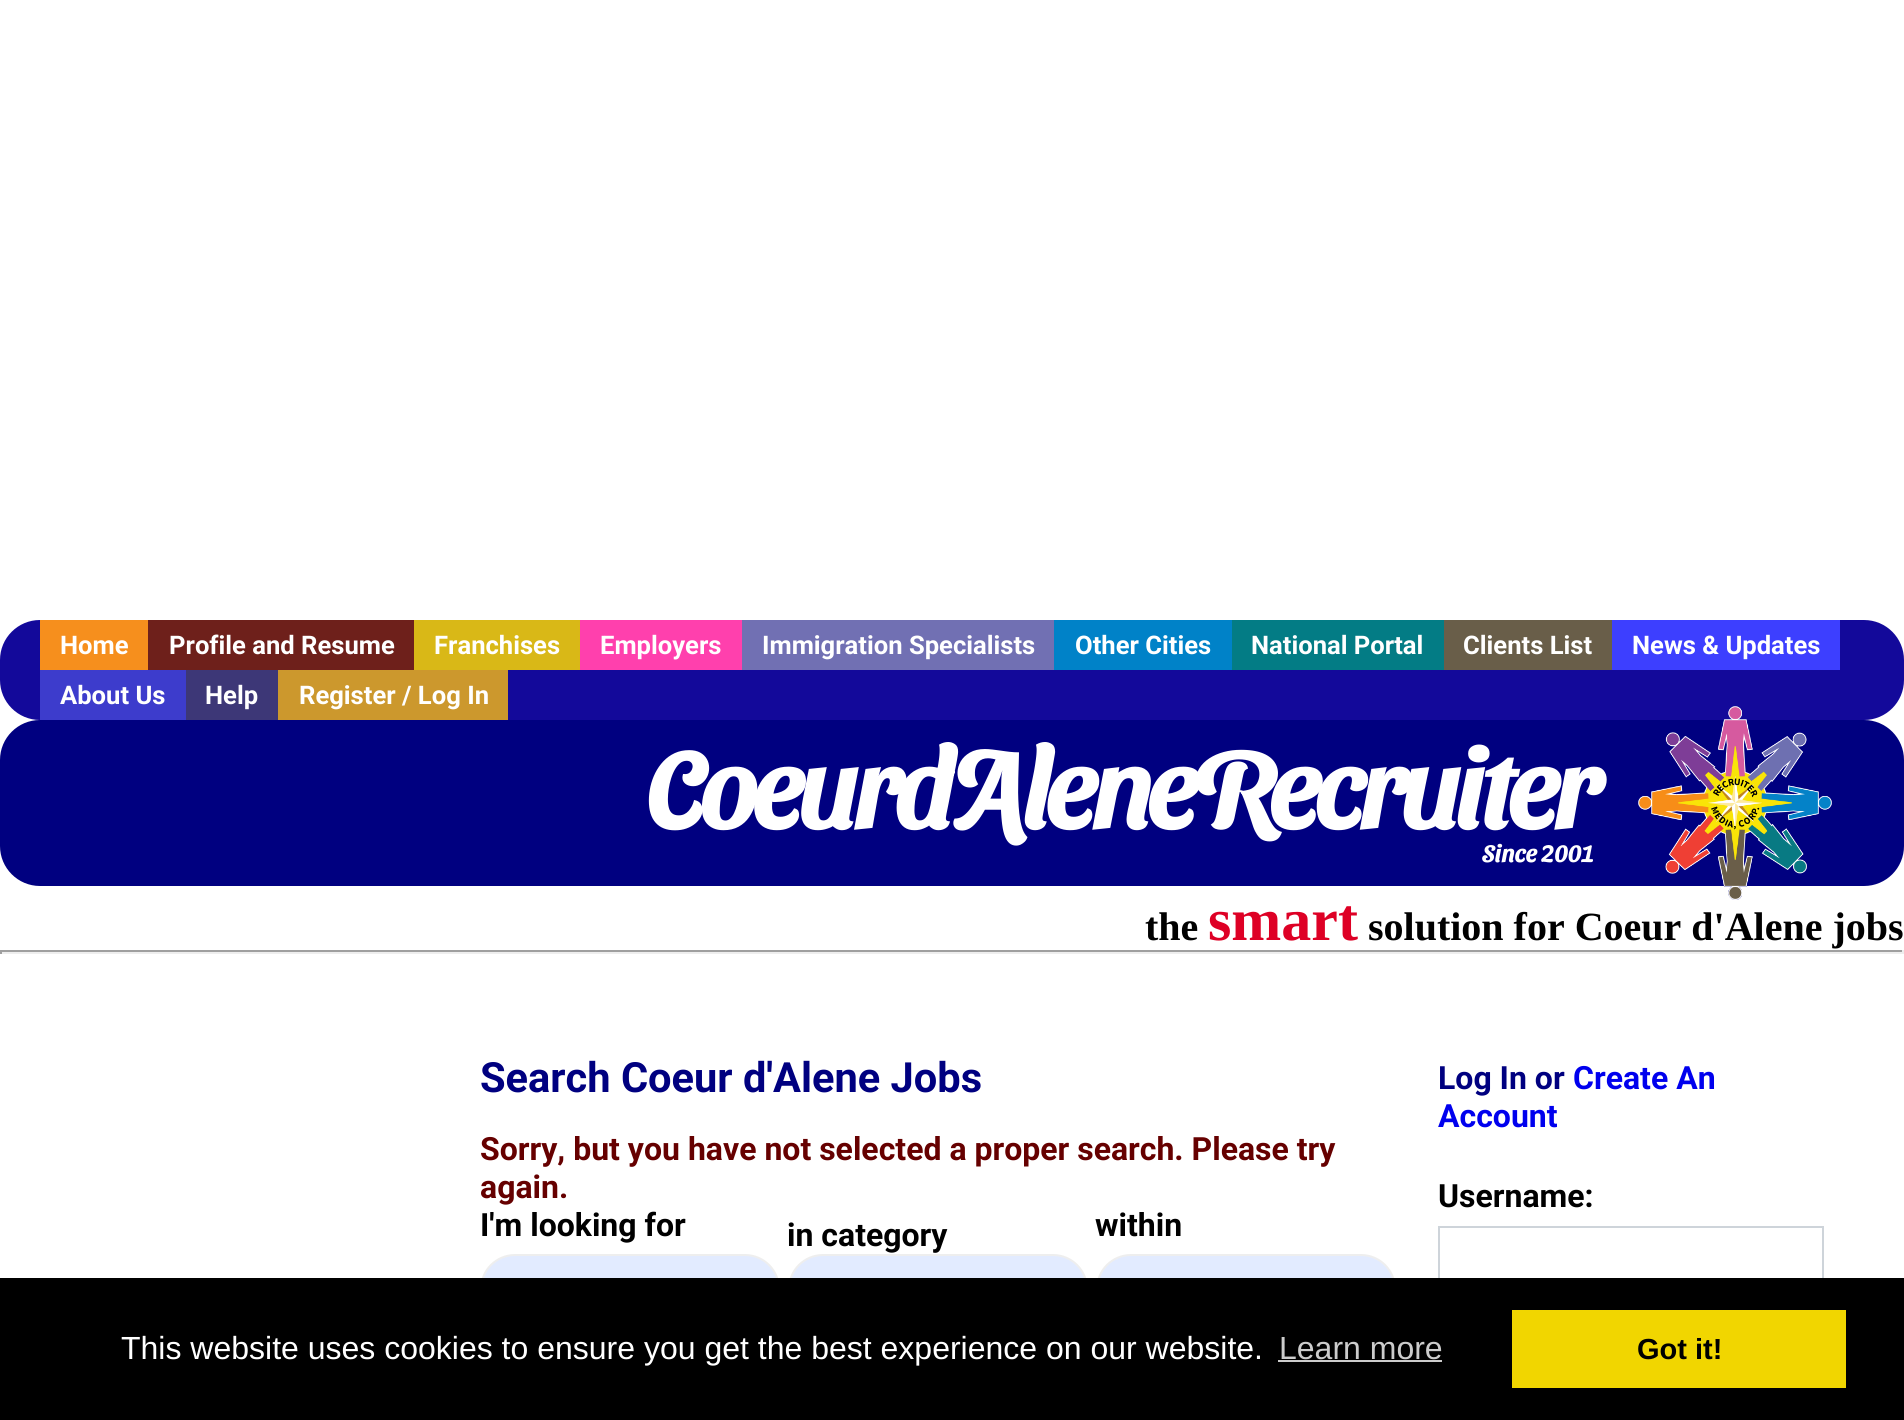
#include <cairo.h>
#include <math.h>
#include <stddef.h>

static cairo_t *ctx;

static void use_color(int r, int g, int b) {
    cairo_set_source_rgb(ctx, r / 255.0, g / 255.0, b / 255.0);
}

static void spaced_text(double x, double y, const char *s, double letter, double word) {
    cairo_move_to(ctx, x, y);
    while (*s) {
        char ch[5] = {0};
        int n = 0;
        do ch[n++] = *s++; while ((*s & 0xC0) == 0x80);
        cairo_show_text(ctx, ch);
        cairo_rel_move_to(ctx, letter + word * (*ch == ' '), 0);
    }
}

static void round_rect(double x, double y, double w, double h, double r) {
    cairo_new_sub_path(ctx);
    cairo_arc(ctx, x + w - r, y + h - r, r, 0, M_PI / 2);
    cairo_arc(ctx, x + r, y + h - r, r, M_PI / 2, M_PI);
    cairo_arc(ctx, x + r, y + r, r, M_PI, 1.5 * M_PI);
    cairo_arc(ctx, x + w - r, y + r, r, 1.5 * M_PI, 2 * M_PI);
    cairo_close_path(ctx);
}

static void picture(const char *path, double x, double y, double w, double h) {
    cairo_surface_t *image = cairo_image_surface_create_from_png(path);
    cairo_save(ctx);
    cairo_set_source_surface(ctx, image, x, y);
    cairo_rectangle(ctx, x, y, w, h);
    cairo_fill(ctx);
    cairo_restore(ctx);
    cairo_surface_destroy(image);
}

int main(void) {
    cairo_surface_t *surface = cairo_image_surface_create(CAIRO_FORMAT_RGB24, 1904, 1420);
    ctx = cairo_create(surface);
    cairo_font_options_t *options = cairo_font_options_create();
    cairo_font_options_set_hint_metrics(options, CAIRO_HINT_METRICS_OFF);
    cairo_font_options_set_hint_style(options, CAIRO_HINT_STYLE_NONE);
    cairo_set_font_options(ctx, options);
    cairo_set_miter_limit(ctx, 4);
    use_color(255, 255, 255);
    cairo_paint(ctx);
    use_color(19, 9, 154);
    round_rect(0, 620, 1904, 100, 40);
    cairo_fill(ctx);
    use_color(246, 143, 29);
    cairo_rectangle(ctx, 40, 620, 108, 50);
    cairo_fill(ctx);
    cairo_select_font_face(ctx, "Roboto", CAIRO_FONT_SLANT_NORMAL, CAIRO_FONT_WEIGHT_BOLD);
    cairo_set_font_size(ctx, 25.6);
    use_color(255, 255, 255);
    cairo_move_to(ctx, 60, 654);
    cairo_show_text(ctx, "Home");
    use_color(110, 32, 27);
    cairo_rectangle(ctx, 148, 620, 266, 50);
    cairo_fill(ctx);
    use_color(255, 255, 255);
    cairo_move_to(ctx, 169, 654);
    cairo_show_text(ctx, "Profile and Resume");
    use_color(217, 184, 23);
    cairo_rectangle(ctx, 414, 620, 166, 50);
    cairo_fill(ctx);
    use_color(255, 255, 255);
    cairo_move_to(ctx, 434, 654);
    cairo_show_text(ctx, "Franchises");
    use_color(255, 64, 173);
    cairo_rectangle(ctx, 580, 620, 162, 50);
    cairo_fill(ctx);
    use_color(255, 255, 255);
    cairo_move_to(ctx, 600, 654);
    cairo_show_text(ctx, "Employers");
    use_color(113, 112, 179);
    cairo_rectangle(ctx, 742, 620, 312, 50);
    cairo_fill(ctx);
    use_color(255, 255, 255);
    cairo_move_to(ctx, 762, 654);
    cairo_show_text(ctx, "Immigration Specialists");
    use_color(0, 130, 200);
    cairo_rectangle(ctx, 1054, 620, 178, 50);
    cairo_fill(ctx);
    use_color(255, 255, 255);
    cairo_move_to(ctx, 1075, 654);
    cairo_show_text(ctx, "Other Cities");
    use_color(3, 124, 133);
    cairo_rectangle(ctx, 1232, 620, 212, 50);
    cairo_fill(ctx);
    use_color(255, 255, 255);
    cairo_move_to(ctx, 1251, 654);
    cairo_show_text(ctx, "National Portal");
    use_color(105, 94, 73);
    cairo_rectangle(ctx, 1444, 620, 168, 50);
    cairo_fill(ctx);
    use_color(255, 255, 255);
    cairo_move_to(ctx, 1463, 654);
    cairo_show_text(ctx, "Clients List");
    use_color(61, 63, 255);
    cairo_rectangle(ctx, 1612, 620, 228, 50);
    cairo_fill(ctx);
    use_color(255, 255, 255);
    cairo_move_to(ctx, 1632, 654);
    cairo_show_text(ctx, "News & Updates");
    use_color(61, 60, 204);
    cairo_rectangle(ctx, 40, 670, 146, 50);
    cairo_fill(ctx);
    use_color(255, 255, 255);
    cairo_move_to(ctx, 60, 704);
    cairo_show_text(ctx, "About Us");
    use_color(61, 55, 119);
    cairo_rectangle(ctx, 186, 670, 92, 50);
    cairo_fill(ctx);
    use_color(255, 255, 255);
    cairo_move_to(ctx, 205, 704);
    cairo_show_text(ctx, "Help");
    use_color(204, 152, 45);
    cairo_rectangle(ctx, 278, 670, 230, 50);
    cairo_fill(ctx);
    use_color(255, 255, 255);
    cairo_move_to(ctx, 299, 704);
    cairo_show_text(ctx, "Register / Log In");
    use_color(0, 0, 128);
    round_rect(0, 720, 1904, 166, 40);
    cairo_fill(ctx);
    cairo_select_font_face(ctx, "Sansita Swashed", CAIRO_FONT_SLANT_NORMAL, CAIRO_FONT_WEIGHT_BOLD);
    cairo_set_font_size(ctx, 110);
    use_color(255, 255, 255);
    spaced_text(646, 828, "CoeurdAleneRecruiter", -6, 0);
    cairo_set_font_size(ctx, 24);
    cairo_move_to(ctx, 1482, 862);
    cairo_show_text(ctx, "Since 2001");
    picture("img1.png", 1638, 706, 194, 194);
    cairo_select_font_face(ctx, "Liberation Serif", CAIRO_FONT_SLANT_NORMAL, CAIRO_FONT_WEIGHT_BOLD);
    cairo_set_font_size(ctx, 40);
    use_color(0, 0, 0);
    cairo_move_to(ctx, 1145, 940);
    cairo_show_text(ctx, "the");
    cairo_set_font_size(ctx, 60);
    use_color(222, 0, 37);
    cairo_move_to(ctx, 1208, 940);
    cairo_show_text(ctx, "smart");
    cairo_set_font_size(ctx, 40);
    use_color(0, 0, 0);
    cairo_move_to(ctx, 1368, 940);
    cairo_show_text(ctx, "solution for Coeur d'Alene jobs");
    use_color(159, 159, 159);
    cairo_rectangle(ctx, 0, 950, 1904, 2);
    cairo_fill(ctx);
    use_color(238, 238, 238);
    cairo_rectangle(ctx, 1902, 950, 2, 4);
    cairo_fill(ctx);
    cairo_rectangle(ctx, 0, 952, 1904, 2);
    cairo_fill(ctx);
    use_color(159, 159, 159);
    cairo_rectangle(ctx, 0, 950, 2, 4);
    cairo_fill(ctx);
    cairo_select_font_face(ctx, "Roboto", CAIRO_FONT_SLANT_NORMAL, CAIRO_FONT_WEIGHT_BOLD);
    cairo_set_font_size(ctx, 41.6);
    use_color(0, 0, 128);
    cairo_move_to(ctx, 480, 1092);
    cairo_show_text(ctx, "Search Coeur d'Alene Jobs");
    cairo_set_font_size(ctx, 32);
    use_color(102, 0, 0);
    cairo_move_to(ctx, 480, 1160);
    cairo_show_text(ctx, "Sorry, but you have not selected a proper search. Please try");
    cairo_move_to(ctx, 480, 1198);
    cairo_show_text(ctx, "again.");
    use_color(0, 0, 0);
    cairo_move_to(ctx, 480, 1236);
    cairo_show_text(ctx, "I'm looking for");
    use_color(226, 235, 255);
    round_rect(481, 1255, 298, 68, 34);
    cairo_fill_preserve(ctx);
    use_color(238, 238, 238);
    cairo_stroke(ctx);
    use_color(0, 0, 0);
    cairo_move_to(ctx, 787, 1246);
    cairo_show_text(ctx, "in category");
    use_color(226, 235, 255);
    round_rect(789, 1255, 298, 68, 34);
    cairo_fill_preserve(ctx);
    use_color(238, 238, 238);
    cairo_stroke(ctx);
    use_color(0, 0, 0);
    cairo_move_to(ctx, 1095, 1236);
    cairo_show_text(ctx, "within");
    use_color(226, 235, 255);
    round_rect(1097, 1255, 298, 68, 34);
    cairo_fill_preserve(ctx);
    use_color(238, 238, 238);
    cairo_stroke(ctx);
    use_color(0, 0, 128);
    cairo_move_to(ctx, 1438, 1089);
    cairo_show_text(ctx, "Log In or");
    use_color(0, 0, 238);
    cairo_move_to(ctx, 1573, 1089);
    cairo_show_text(ctx, "Create An");
    cairo_move_to(ctx, 1438, 1127);
    cairo_show_text(ctx, "Account");
    use_color(0, 0, 0);
    cairo_move_to(ctx, 1438, 1207);
    cairo_show_text(ctx, "Username:");
    cairo_rectangle(ctx, 1439, 1227, 384, 68);
    use_color(206, 212, 218);
    cairo_stroke(ctx);
    use_color(0, 0, 0);
    cairo_rectangle(ctx, 0, 1278, 1904, 142);
    cairo_fill(ctx);
    cairo_select_font_face(ctx, "Liberation Sans", CAIRO_FONT_SLANT_NORMAL, CAIRO_FONT_WEIGHT_NORMAL);
    use_color(255, 255, 255);
    cairo_move_to(ctx, 121, 1359);
    cairo_show_text(ctx, "This website uses cookies to ensure you get the best experience on our website.");
    use_color(204, 204, 204);
    cairo_move_to(ctx, 1279, 1359);
    cairo_show_text(ctx, "Learn more");
    cairo_rectangle(ctx, 1278, 1360, 164, 2);
    cairo_fill(ctx);
    use_color(241, 214, 0);
    cairo_rectangle(ctx, 1512, 1310, 334, 78);
    cairo_fill(ctx);
    cairo_select_font_face(ctx, "Liberation Sans", CAIRO_FONT_SLANT_NORMAL, CAIRO_FONT_WEIGHT_BOLD);
    cairo_set_font_size(ctx, 29);
    use_color(0, 0, 0);
    cairo_move_to(ctx, 1637, 1359);
    cairo_show_text(ctx, "Got it!");
    cairo_surface_write_to_png(surface, "result.png");
    cairo_font_options_destroy(options);
    cairo_destroy(ctx);
    cairo_surface_destroy(surface);
    return 0;
}
